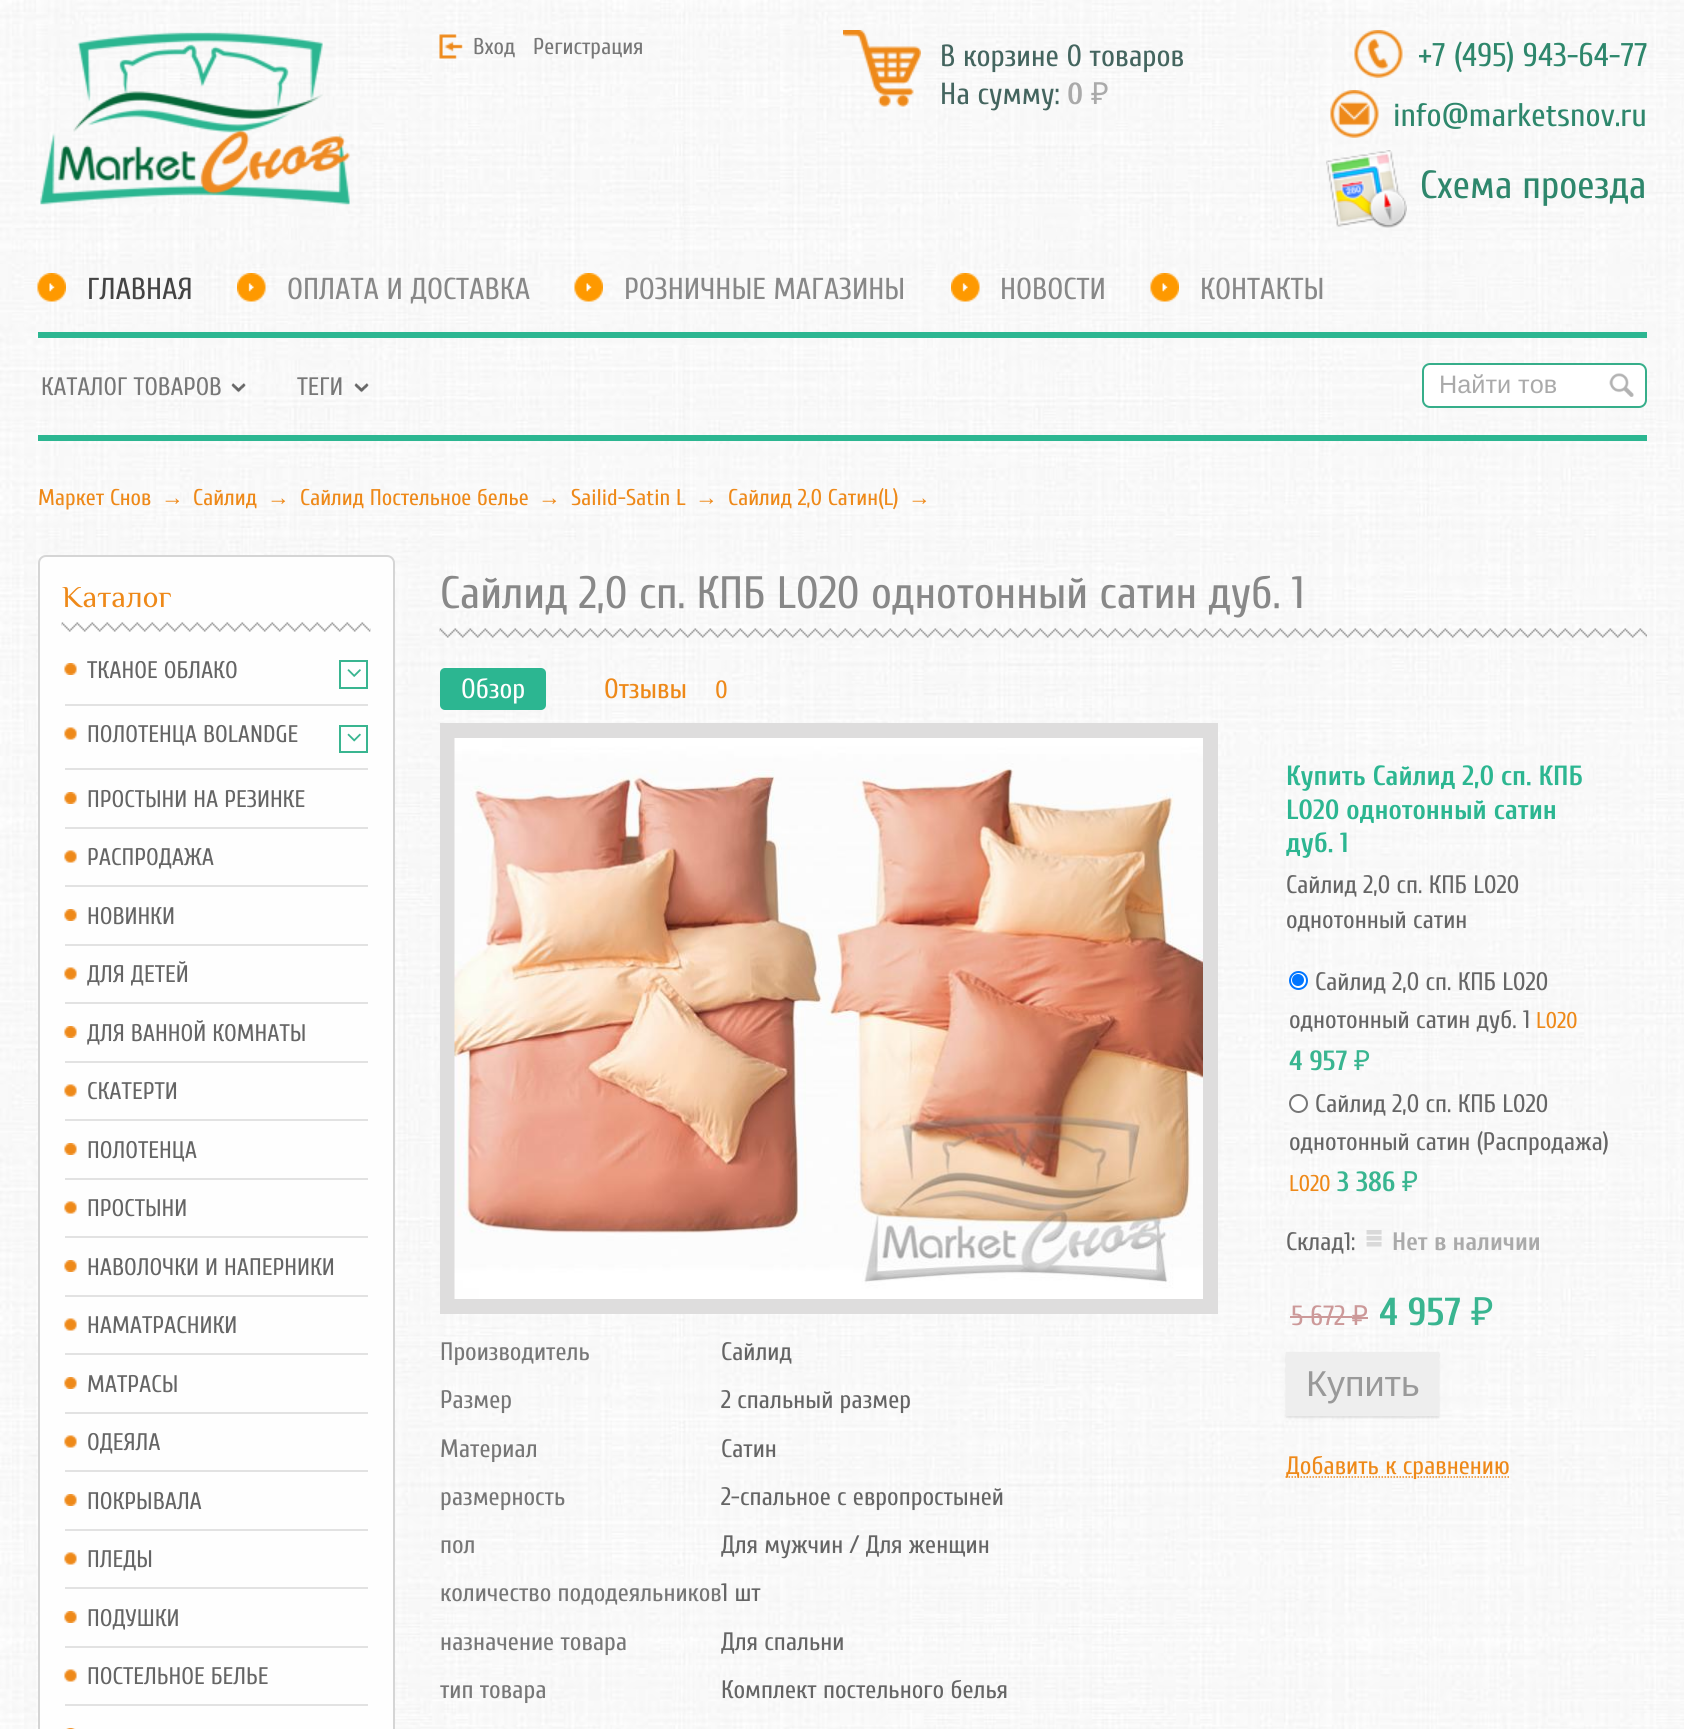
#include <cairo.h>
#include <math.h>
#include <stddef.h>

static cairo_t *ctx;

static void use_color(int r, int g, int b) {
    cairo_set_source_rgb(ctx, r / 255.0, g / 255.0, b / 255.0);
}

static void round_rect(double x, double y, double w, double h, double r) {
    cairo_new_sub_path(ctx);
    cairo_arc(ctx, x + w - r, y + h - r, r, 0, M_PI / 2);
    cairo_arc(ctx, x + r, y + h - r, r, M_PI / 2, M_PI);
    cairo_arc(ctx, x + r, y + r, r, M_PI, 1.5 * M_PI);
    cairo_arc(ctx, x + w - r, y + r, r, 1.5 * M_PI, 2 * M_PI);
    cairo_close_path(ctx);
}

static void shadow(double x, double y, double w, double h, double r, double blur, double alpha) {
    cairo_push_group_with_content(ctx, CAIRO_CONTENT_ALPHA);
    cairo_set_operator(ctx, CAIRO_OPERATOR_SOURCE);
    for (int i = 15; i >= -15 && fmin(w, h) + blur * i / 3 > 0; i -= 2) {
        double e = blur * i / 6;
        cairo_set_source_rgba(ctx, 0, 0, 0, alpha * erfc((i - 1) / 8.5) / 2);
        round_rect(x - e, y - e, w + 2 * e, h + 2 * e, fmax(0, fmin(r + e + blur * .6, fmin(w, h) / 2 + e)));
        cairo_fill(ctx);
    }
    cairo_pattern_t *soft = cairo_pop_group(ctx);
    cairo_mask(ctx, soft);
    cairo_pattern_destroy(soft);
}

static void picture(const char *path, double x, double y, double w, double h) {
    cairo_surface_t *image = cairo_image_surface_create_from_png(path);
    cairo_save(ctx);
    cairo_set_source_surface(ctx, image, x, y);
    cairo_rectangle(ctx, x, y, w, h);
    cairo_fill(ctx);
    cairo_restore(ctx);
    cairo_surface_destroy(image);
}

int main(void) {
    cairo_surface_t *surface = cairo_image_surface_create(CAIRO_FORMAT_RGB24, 1684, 1729);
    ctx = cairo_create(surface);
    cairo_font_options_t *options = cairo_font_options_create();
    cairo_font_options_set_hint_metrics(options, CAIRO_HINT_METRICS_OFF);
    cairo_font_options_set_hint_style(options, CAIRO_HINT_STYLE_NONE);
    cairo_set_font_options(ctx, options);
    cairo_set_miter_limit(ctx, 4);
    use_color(255, 255, 255);
    cairo_paint(ctx);
    picture("img1.png", 0, 0, 1684, 1729);
    picture("img2.png", 40, 32, 310, 173);
    picture("img3.png", 439, 34, 24, 25);
    cairo_select_font_face(ctx, "Cuprum", CAIRO_FONT_SLANT_NORMAL, CAIRO_FONT_WEIGHT_NORMAL);
    cairo_set_font_size(ctx, 22.75);
    use_color(119, 119, 119);
    cairo_move_to(ctx, 473, 54);
    cairo_show_text(ctx, "Вход");
    cairo_move_to(ctx, 533, 54);
    cairo_show_text(ctx, "Регистрация");
    picture("img4.png", 843, 30, 78, 77);
    cairo_set_font_size(ctx, 30.5);
    use_color(68, 101, 95);
    cairo_move_to(ctx, 940, 66);
    cairo_show_text(ctx, "В корзине 0 товаров");
    cairo_move_to(ctx, 940, 104);
    cairo_show_text(ctx, "На сумму:");
    cairo_select_font_face(ctx, "Cuprum", CAIRO_FONT_SLANT_NORMAL, CAIRO_FONT_WEIGHT_BOLD);
    use_color(170, 170, 170);
    cairo_move_to(ctx, 1067, 104);
    cairo_show_text(ctx, "0");
    cairo_select_font_face(ctx, "Noto Sans", CAIRO_FONT_SLANT_NORMAL, CAIRO_FONT_WEIGHT_NORMAL);
    cairo_move_to(ctx, 1091, 104);
    cairo_show_text(ctx, "₽");
    picture("img5.png", 1354, 30, 49, 48);
    cairo_select_font_face(ctx, "Cuprum", CAIRO_FONT_SLANT_NORMAL, CAIRO_FONT_WEIGHT_NORMAL);
    cairo_set_font_size(ctx, 32.75);
    use_color(46, 135, 108);
    cairo_move_to(ctx, 1418, 66);
    cairo_show_text(ctx, "+7 (495) 943-64-77");
    picture("img6.png", 1330, 90, 49, 48);
    cairo_move_to(ctx, 1393, 126);
    cairo_show_text(ctx, "info@marketsnov.ru");
    picture("img7.png", 1326, 150, 81, 78);
    cairo_set_font_size(ctx, 39.25);
    cairo_move_to(ctx, 1420, 198);
    cairo_show_text(ctx, "Схема проезда");
    picture("img8.png", 37, 273, 29, 29);
    cairo_set_font_size(ctx, 30.25);
    use_color(68, 68, 68);
    cairo_move_to(ctx, 87, 299);
    cairo_show_text(ctx, "ГЛАВНАЯ");
    picture("img9.png", 237, 273, 29, 29);
    use_color(136, 136, 136);
    cairo_move_to(ctx, 287, 299);
    cairo_show_text(ctx, "ОПЛАТА И ДОСТАВКА");
    picture("img10.png", 574, 273, 29, 29);
    cairo_move_to(ctx, 624, 299);
    cairo_show_text(ctx, "РОЗНИЧНЫЕ МАГАЗИНЫ");
    picture("img11.png", 951, 273, 29, 29);
    cairo_move_to(ctx, 1000, 299);
    cairo_show_text(ctx, "НОВОСТИ");
    picture("img12.png", 1150, 273, 29, 29);
    cairo_move_to(ctx, 1200, 299);
    cairo_show_text(ctx, "КОНТАКТЫ");
    use_color(44, 182, 145);
    cairo_rectangle(ctx, 38, 332, 1609, 6);
    cairo_fill(ctx);
    cairo_rectangle(ctx, 38, 435, 1609, 6);
    cairo_fill(ctx);
    picture("img13.png", 231, 383, 15, 10);
    cairo_set_font_size(ctx, 25.25);
    use_color(119, 119, 119);
    cairo_move_to(ctx, 41, 395);
    cairo_show_text(ctx, "КАТАЛОГ ТОВАРОВ");
    picture("img14.png", 354, 383, 15, 10);
    cairo_move_to(ctx, 297, 395);
    cairo_show_text(ctx, "ТЕГИ");
    use_color(255, 255, 255);
    round_rect(1423, 364, 223, 43, 7);
    cairo_fill_preserve(ctx);
    use_color(54, 174, 138);
    cairo_stroke(ctx);
    cairo_select_font_face(ctx, "Liberation Sans", CAIRO_FONT_SLANT_NORMAL, CAIRO_FONT_WEIGHT_NORMAL);
    use_color(170, 170, 170);
    cairo_move_to(ctx, 1439, 393);
    cairo_show_text(ctx, "Найти тов");
    picture("img15.png", 1609, 373, 25, 24);
    cairo_select_font_face(ctx, "Cuprum", CAIRO_FONT_SLANT_NORMAL, CAIRO_FONT_WEIGHT_NORMAL);
    cairo_set_font_size(ctx, 22.75);
    use_color(238, 137, 25);
    cairo_move_to(ctx, 38, 505);
    cairo_show_text(ctx, "Маркет Снов");
    cairo_select_font_face(ctx, "Liberation Sans", CAIRO_FONT_SLANT_NORMAL, CAIRO_FONT_WEIGHT_NORMAL);
    cairo_move_to(ctx, 161, 505);
    cairo_show_text(ctx, "→");
    cairo_select_font_face(ctx, "Cuprum", CAIRO_FONT_SLANT_NORMAL, CAIRO_FONT_WEIGHT_NORMAL);
    cairo_move_to(ctx, 193, 505);
    cairo_show_text(ctx, "Сайлид");
    cairo_select_font_face(ctx, "Liberation Sans", CAIRO_FONT_SLANT_NORMAL, CAIRO_FONT_WEIGHT_NORMAL);
    cairo_move_to(ctx, 267, 505);
    cairo_show_text(ctx, "→");
    cairo_select_font_face(ctx, "Cuprum", CAIRO_FONT_SLANT_NORMAL, CAIRO_FONT_WEIGHT_NORMAL);
    cairo_move_to(ctx, 300, 505);
    cairo_show_text(ctx, "Сайлид Постельное бельe");
    cairo_select_font_face(ctx, "Liberation Sans", CAIRO_FONT_SLANT_NORMAL, CAIRO_FONT_WEIGHT_NORMAL);
    cairo_move_to(ctx, 538, 505);
    cairo_show_text(ctx, "→");
    cairo_select_font_face(ctx, "Cuprum", CAIRO_FONT_SLANT_NORMAL, CAIRO_FONT_WEIGHT_NORMAL);
    cairo_move_to(ctx, 571, 505);
    cairo_show_text(ctx, "Sailid-Satin L");
    cairo_select_font_face(ctx, "Liberation Sans", CAIRO_FONT_SLANT_NORMAL, CAIRO_FONT_WEIGHT_NORMAL);
    cairo_move_to(ctx, 695, 505);
    cairo_show_text(ctx, "→");
    cairo_select_font_face(ctx, "Cuprum", CAIRO_FONT_SLANT_NORMAL, CAIRO_FONT_WEIGHT_NORMAL);
    cairo_move_to(ctx, 728, 505);
    cairo_show_text(ctx, "Сайлид 2,0 Сатин(L)");
    cairo_select_font_face(ctx, "Liberation Sans", CAIRO_FONT_SLANT_NORMAL, CAIRO_FONT_WEIGHT_NORMAL);
    cairo_move_to(ctx, 908, 505);
    cairo_show_text(ctx, "→");
    use_color(254, 254, 254);
    round_rect(39, 556, 355, 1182, 7);
    cairo_fill_preserve(ctx);
    use_color(213, 213, 213);
    cairo_stroke(ctx);
    picture("img16.png", 61, 622, 310, 10);
    cairo_select_font_face(ctx, "Philosopher", CAIRO_FONT_SLANT_NORMAL, CAIRO_FONT_WEIGHT_NORMAL);
    cairo_set_font_size(ctx, 30.25);
    use_color(238, 137, 25);
    cairo_move_to(ctx, 62, 607);
    cairo_show_text(ctx, "Каталог");
    picture("img17.png", 64, 663, 13, 12);
    use_color(226, 226, 226);
    cairo_rectangle(ctx, 65, 704, 303, 2);
    cairo_fill(ctx);
    cairo_select_font_face(ctx, "Cuprum", CAIRO_FONT_SLANT_NORMAL, CAIRO_FONT_WEIGHT_NORMAL);
    cairo_set_font_size(ctx, 24);
    use_color(101, 101, 101);
    cairo_move_to(ctx, 87, 678);
    cairo_show_text(ctx, "ТКАНОЕ ОБЛАКО");
    cairo_rectangle(ctx, 340, 661, 27, 27);
    use_color(57, 181, 144);
    cairo_stroke(ctx);
    picture("img18.png", 347, 669, 14, 8);
    picture("img19.png", 64, 727, 13, 13);
    use_color(226, 226, 226);
    cairo_rectangle(ctx, 65, 768, 303, 2);
    cairo_fill(ctx);
    use_color(101, 101, 101);
    cairo_move_to(ctx, 87, 742);
    cairo_show_text(ctx, "ПОЛОТЕНЦА BOLANDGE");
    cairo_rectangle(ctx, 340, 726, 27, 26);
    use_color(57, 181, 144);
    cairo_stroke(ctx);
    picture("img20.png", 347, 733, 14, 9);
    picture("img17.png", 64, 792, 13, 12);
    use_color(226, 226, 226);
    cairo_rectangle(ctx, 65, 827, 303, 2);
    cairo_fill(ctx);
    use_color(101, 101, 101);
    cairo_move_to(ctx, 87, 807);
    cairo_show_text(ctx, "ПРОСТЫНИ НА РЕЗИНКЕ");
    picture("img19.png", 64, 850, 13, 13);
    use_color(226, 226, 226);
    cairo_rectangle(ctx, 65, 885, 303, 2);
    cairo_fill(ctx);
    use_color(101, 101, 101);
    cairo_move_to(ctx, 87, 865);
    cairo_show_text(ctx, "РАСПРОДАЖА");
    picture("img17.png", 64, 909, 13, 12);
    use_color(226, 226, 226);
    cairo_rectangle(ctx, 65, 944, 303, 2);
    cairo_fill(ctx);
    use_color(101, 101, 101);
    cairo_move_to(ctx, 87, 924);
    cairo_show_text(ctx, "НОВИНКИ");
    picture("img19.png", 64, 967, 13, 13);
    use_color(226, 226, 226);
    cairo_rectangle(ctx, 65, 1002, 303, 2);
    cairo_fill(ctx);
    use_color(101, 101, 101);
    cairo_move_to(ctx, 87, 982);
    cairo_show_text(ctx, "ДЛЯ ДЕТЕЙ");
    picture("img17.png", 64, 1026, 13, 12);
    use_color(226, 226, 226);
    cairo_rectangle(ctx, 65, 1061, 303, 2);
    cairo_fill(ctx);
    use_color(101, 101, 101);
    cairo_move_to(ctx, 87, 1041);
    cairo_show_text(ctx, "ДЛЯ ВАННОЙ КОМНАТЫ");
    picture("img19.png", 64, 1084, 13, 13);
    use_color(226, 226, 226);
    cairo_rectangle(ctx, 65, 1119, 303, 2);
    cairo_fill(ctx);
    use_color(101, 101, 101);
    cairo_move_to(ctx, 87, 1099);
    cairo_show_text(ctx, "СКАТЕРТИ");
    picture("img17.png", 64, 1143, 13, 12);
    use_color(226, 226, 226);
    cairo_rectangle(ctx, 65, 1178, 303, 2);
    cairo_fill(ctx);
    use_color(101, 101, 101);
    cairo_move_to(ctx, 87, 1158);
    cairo_show_text(ctx, "ПОЛОТЕНЦА");
    picture("img19.png", 64, 1201, 13, 13);
    use_color(226, 226, 226);
    cairo_rectangle(ctx, 65, 1236, 303, 2);
    cairo_fill(ctx);
    use_color(101, 101, 101);
    cairo_move_to(ctx, 87, 1216);
    cairo_show_text(ctx, "ПРОСТЫНИ");
    picture("img17.png", 64, 1260, 13, 12);
    use_color(226, 226, 226);
    cairo_rectangle(ctx, 65, 1295, 303, 2);
    cairo_fill(ctx);
    use_color(101, 101, 101);
    cairo_move_to(ctx, 87, 1275);
    cairo_show_text(ctx, "НАВОЛОЧКИ И НАПЕРНИКИ");
    picture("img19.png", 64, 1318, 13, 13);
    use_color(226, 226, 226);
    cairo_rectangle(ctx, 65, 1353, 303, 2);
    cairo_fill(ctx);
    use_color(101, 101, 101);
    cairo_move_to(ctx, 87, 1333);
    cairo_show_text(ctx, "НАМАТРАСНИКИ");
    picture("img17.png", 64, 1377, 13, 12);
    use_color(226, 226, 226);
    cairo_rectangle(ctx, 65, 1412, 303, 2);
    cairo_fill(ctx);
    use_color(101, 101, 101);
    cairo_move_to(ctx, 87, 1392);
    cairo_show_text(ctx, "МАТРАСЫ");
    picture("img19.png", 64, 1435, 13, 13);
    use_color(226, 226, 226);
    cairo_rectangle(ctx, 65, 1470, 303, 2);
    cairo_fill(ctx);
    use_color(101, 101, 101);
    cairo_move_to(ctx, 87, 1450);
    cairo_show_text(ctx, "ОДЕЯЛА");
    picture("img17.png", 64, 1494, 13, 12);
    use_color(226, 226, 226);
    cairo_rectangle(ctx, 65, 1529, 303, 2);
    cairo_fill(ctx);
    use_color(101, 101, 101);
    cairo_move_to(ctx, 87, 1509);
    cairo_show_text(ctx, "ПОКРЫВАЛА");
    picture("img19.png", 64, 1552, 13, 13);
    use_color(226, 226, 226);
    cairo_rectangle(ctx, 65, 1587, 303, 2);
    cairo_fill(ctx);
    use_color(101, 101, 101);
    cairo_move_to(ctx, 87, 1567);
    cairo_show_text(ctx, "ПЛЕДЫ");
    picture("img17.png", 64, 1611, 13, 12);
    use_color(226, 226, 226);
    cairo_rectangle(ctx, 65, 1646, 303, 2);
    cairo_fill(ctx);
    use_color(101, 101, 101);
    cairo_move_to(ctx, 87, 1626);
    cairo_show_text(ctx, "ПОДУШКИ");
    picture("img19.png", 64, 1669, 13, 13);
    use_color(226, 226, 226);
    cairo_rectangle(ctx, 65, 1704, 303, 2);
    cairo_fill(ctx);
    use_color(101, 101, 101);
    cairo_move_to(ctx, 87, 1684);
    cairo_show_text(ctx, "ПОСТЕЛЬНОЕ БЕЛЬЕ");
    picture("img21.png", 66, 1728, 10, 1);
    picture("img22.png", 439, 628, 1208, 10);
    cairo_set_font_size(ctx, 45.4);
    use_color(136, 136, 136);
    cairo_move_to(ctx, 440, 608);
    cairo_show_text(ctx, "Сайлид 2,0 сп. КПБ L020 однотонный сатин дуб. 1");
    use_color(44, 182, 145);
    round_rect(440, 668, 106, 42, 5);
    cairo_fill(ctx);
    cairo_set_font_size(ctx, 27.75);
    use_color(254, 254, 254);
    cairo_move_to(ctx, 461, 698);
    cairo_show_text(ctx, "Обзор");
    use_color(238, 137, 25);
    cairo_move_to(ctx, 604, 698);
    cairo_show_text(ctx, "Отзывы");
    cairo_set_font_size(ctx, 25);
    cairo_move_to(ctx, 715, 698);
    cairo_show_text(ctx, "0");
    cairo_select_font_face(ctx, "Cuprum", CAIRO_FONT_SLANT_NORMAL, CAIRO_FONT_WEIGHT_BOLD);
    cairo_set_font_size(ctx, 27.75);
    use_color(44, 182, 145);
    cairo_move_to(ctx, 1286, 785);
    cairo_show_text(ctx, "Купить Сайлид 2,0 сп. КПБ");
    cairo_move_to(ctx, 1286, 819);
    cairo_show_text(ctx, "L020 однотонный сатин");
    cairo_move_to(ctx, 1286, 852);
    cairo_show_text(ctx, "дуб. 1");
    cairo_select_font_face(ctx, "Cuprum", CAIRO_FONT_SLANT_NORMAL, CAIRO_FONT_WEIGHT_NORMAL);
    cairo_set_font_size(ctx, 25.25);
    use_color(101, 101, 101);
    cairo_move_to(ctx, 1286, 893);
    cairo_show_text(ctx, "Сайлид 2,0 сп. КПБ L020");
    cairo_move_to(ctx, 1286, 928);
    cairo_show_text(ctx, "однотонный сатин");
    use_color(255, 255, 255);
    cairo_new_path(ctx);
    cairo_arc(ctx, 1298.5, 980.5, 8.5, 0, 2 * M_PI);
    cairo_fill_preserve(ctx);
    use_color(0, 117, 255);
    cairo_stroke(ctx);
    cairo_arc(ctx, 1298, 980, 6, 0, 2 * M_PI);
    cairo_fill(ctx);
    use_color(101, 101, 101);
    cairo_move_to(ctx, 1315, 990);
    cairo_show_text(ctx, "Сайлид 2,0 сп. КПБ L020");
    cairo_move_to(ctx, 1289, 1028);
    cairo_show_text(ctx, "однотонный сатин дуб. 1");
    cairo_set_font_size(ctx, 22.75);
    use_color(238, 137, 25);
    cairo_move_to(ctx, 1536, 1028);
    cairo_show_text(ctx, "L020");
    cairo_select_font_face(ctx, "Cuprum", CAIRO_FONT_SLANT_NORMAL, CAIRO_FONT_WEIGHT_BOLD);
    cairo_set_font_size(ctx, 27.75);
    use_color(57, 181, 144);
    cairo_move_to(ctx, 1289, 1070);
    cairo_show_text(ctx, "4 957");
    cairo_select_font_face(ctx, "Noto Sans", CAIRO_FONT_SLANT_NORMAL, CAIRO_FONT_WEIGHT_NORMAL);
    cairo_move_to(ctx, 1354, 1070);
    cairo_show_text(ctx, "₽");
    use_color(255, 255, 255);
    cairo_new_path(ctx);
    cairo_arc(ctx, 1298.5, 1103.5, 8.5, 0, 2 * M_PI);
    cairo_fill_preserve(ctx);
    use_color(118, 118, 118);
    cairo_stroke(ctx);
    cairo_select_font_face(ctx, "Cuprum", CAIRO_FONT_SLANT_NORMAL, CAIRO_FONT_WEIGHT_NORMAL);
    cairo_set_font_size(ctx, 25.25);
    use_color(101, 101, 101);
    cairo_move_to(ctx, 1315, 1112);
    cairo_show_text(ctx, "Сайлид 2,0 сп. КПБ L020");
    cairo_move_to(ctx, 1289, 1150);
    cairo_show_text(ctx, "однотонный сатин (Распродажа)");
    cairo_set_font_size(ctx, 22.75);
    use_color(238, 137, 25);
    cairo_move_to(ctx, 1289, 1191);
    cairo_show_text(ctx, "L020");
    cairo_select_font_face(ctx, "Cuprum", CAIRO_FONT_SLANT_NORMAL, CAIRO_FONT_WEIGHT_BOLD);
    cairo_set_font_size(ctx, 27.75);
    use_color(57, 181, 144);
    cairo_move_to(ctx, 1337, 1191);
    cairo_show_text(ctx, "3 386");
    cairo_select_font_face(ctx, "Noto Sans", CAIRO_FONT_SLANT_NORMAL, CAIRO_FONT_WEIGHT_NORMAL);
    cairo_move_to(ctx, 1402, 1191);
    cairo_show_text(ctx, "₽");
    cairo_select_font_face(ctx, "Cuprum", CAIRO_FONT_SLANT_NORMAL, CAIRO_FONT_WEIGHT_NORMAL);
    cairo_set_font_size(ctx, 25.25);
    use_color(101, 101, 101);
    cairo_move_to(ctx, 1286, 1250);
    cairo_show_text(ctx, "Склад1:");
    picture("img23.png", 1366, 1230, 16, 17);
    cairo_select_font_face(ctx, "Cuprum", CAIRO_FONT_SLANT_NORMAL, CAIRO_FONT_WEIGHT_BOLD);
    use_color(170, 170, 170);
    cairo_move_to(ctx, 1392, 1250);
    cairo_show_text(ctx, "Нет в наличии");
    cairo_select_font_face(ctx, "Cuprum", CAIRO_FONT_SLANT_NORMAL, CAIRO_FONT_WEIGHT_NORMAL);
    cairo_set_font_size(ctx, 27.75);
    use_color(204, 153, 153);
    cairo_move_to(ctx, 1291, 1325);
    cairo_show_text(ctx, "5 672");
    cairo_rectangle(ctx, 1290, 1316, 62, 2);
    cairo_fill(ctx);
    cairo_select_font_face(ctx, "Noto Sans", CAIRO_FONT_SLANT_NORMAL, CAIRO_FONT_WEIGHT_NORMAL);
    cairo_move_to(ctx, 1352, 1325);
    cairo_show_text(ctx, "₽");
    cairo_rectangle(ctx, 1352, 1317, 16, 2);
    cairo_fill(ctx);
    cairo_select_font_face(ctx, "Cuprum", CAIRO_FONT_SLANT_NORMAL, CAIRO_FONT_WEIGHT_BOLD);
    cairo_set_font_size(ctx, 39);
    use_color(57, 181, 144);
    cairo_move_to(ctx, 1379, 1325);
    cairo_show_text(ctx, "4 957");
    cairo_select_font_face(ctx, "Noto Sans", CAIRO_FONT_SLANT_NORMAL, CAIRO_FONT_WEIGHT_NORMAL);
    cairo_move_to(ctx, 1471, 1325);
    cairo_show_text(ctx, "₽");
    use_color(0, 0, 0);
    shadow(1286, 1353, 153, 65, 0, 1, 0.1);
    use_color(238, 238, 238);
    cairo_rectangle(ctx, 1286, 1352, 153, 64);
    cairo_fill(ctx);
    cairo_select_font_face(ctx, "Liberation Sans", CAIRO_FONT_SLANT_NORMAL, CAIRO_FONT_WEIGHT_NORMAL);
    cairo_set_font_size(ctx, 36);
    use_color(153, 153, 153);
    cairo_move_to(ctx, 1306, 1396);
    cairo_show_text(ctx, "Купить");
    cairo_new_path(ctx);
    cairo_move_to(ctx, 1285.5, 1477);
    cairo_line_to(ctx, 1509, 1477);
    use_color(238, 137, 25);
    cairo_set_line_width(ctx, 1.5);
    cairo_set_dash(ctx, (double[]){1.5, 1.5}, 2, 0);
    cairo_stroke(ctx);
    cairo_select_font_face(ctx, "Cuprum", CAIRO_FONT_SLANT_NORMAL, CAIRO_FONT_WEIGHT_NORMAL);
    cairo_set_font_size(ctx, 25.25);
    cairo_move_to(ctx, 1286, 1474);
    cairo_show_text(ctx, "Добавить к сравнению");
    cairo_rectangle(ctx, 447.5, 730.5, 763, 576);
    use_color(222, 221, 221);
    cairo_set_line_width(ctx, 15);
    cairo_set_dash(ctx, NULL, 0, 0);
    cairo_stroke(ctx);
    picture("img24.png", 454, 738, 749, 561);
    use_color(119, 119, 119);
    cairo_move_to(ctx, 440, 1360);
    cairo_show_text(ctx, "Производитель");
    use_color(101, 101, 101);
    cairo_move_to(ctx, 721, 1360);
    cairo_show_text(ctx, "Сайлид");
    use_color(119, 119, 119);
    cairo_move_to(ctx, 440, 1408);
    cairo_show_text(ctx, "Размер");
    use_color(101, 101, 101);
    cairo_move_to(ctx, 721, 1408);
    cairo_show_text(ctx, "2 спальный размер");
    use_color(119, 119, 119);
    cairo_move_to(ctx, 440, 1457);
    cairo_show_text(ctx, "Материал");
    use_color(101, 101, 101);
    cairo_move_to(ctx, 721, 1457);
    cairo_show_text(ctx, "Сатин");
    use_color(119, 119, 119);
    cairo_move_to(ctx, 440, 1505);
    cairo_show_text(ctx, "размерность");
    use_color(101, 101, 101);
    cairo_move_to(ctx, 721, 1505);
    cairo_show_text(ctx, "2-спальное с европростыней");
    use_color(119, 119, 119);
    cairo_move_to(ctx, 440, 1553);
    cairo_show_text(ctx, "пол");
    use_color(101, 101, 101);
    cairo_move_to(ctx, 721, 1553);
    cairo_show_text(ctx, "Для мужчин / Для женщин");
    use_color(119, 119, 119);
    cairo_move_to(ctx, 440, 1601);
    cairo_show_text(ctx, "количество пододеяльников");
    use_color(101, 101, 101);
    cairo_move_to(ctx, 721, 1601);
    cairo_show_text(ctx, "1 шт");
    use_color(119, 119, 119);
    cairo_move_to(ctx, 440, 1650);
    cairo_show_text(ctx, "назначение товара");
    use_color(101, 101, 101);
    cairo_move_to(ctx, 721, 1650);
    cairo_show_text(ctx, "Для спальни");
    use_color(119, 119, 119);
    cairo_move_to(ctx, 440, 1698);
    cairo_show_text(ctx, "тип товара");
    use_color(101, 101, 101);
    cairo_move_to(ctx, 721, 1698);
    cairo_show_text(ctx, "Комплект постельного белья");
    cairo_surface_write_to_png(surface, "result.png");
    cairo_font_options_destroy(options);
    cairo_destroy(ctx);
    cairo_surface_destroy(surface);
    return 0;
}
